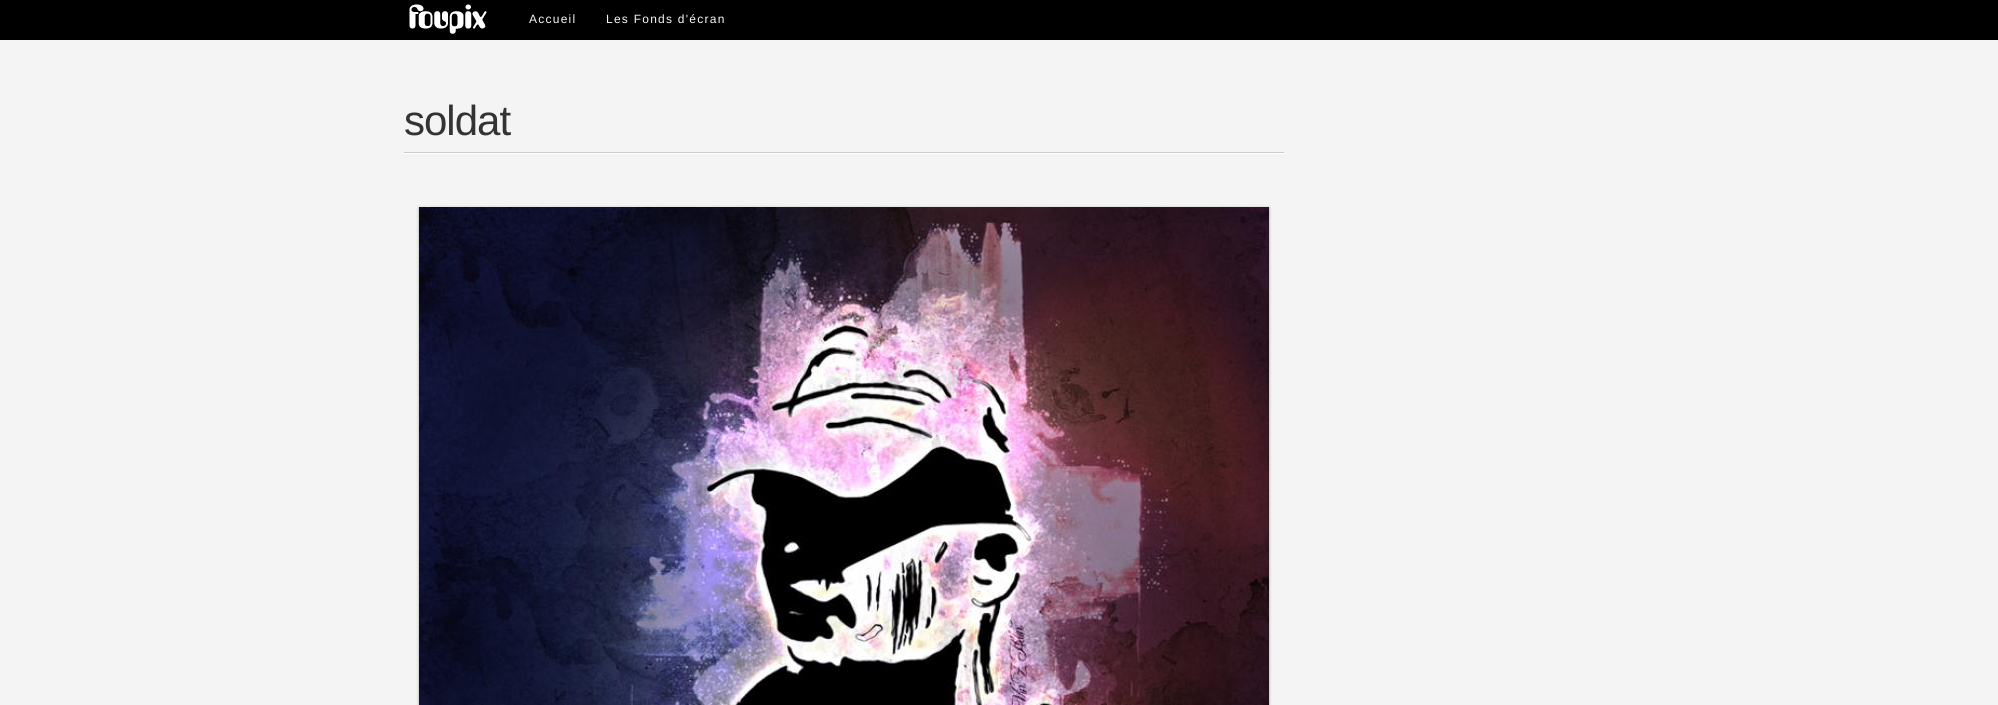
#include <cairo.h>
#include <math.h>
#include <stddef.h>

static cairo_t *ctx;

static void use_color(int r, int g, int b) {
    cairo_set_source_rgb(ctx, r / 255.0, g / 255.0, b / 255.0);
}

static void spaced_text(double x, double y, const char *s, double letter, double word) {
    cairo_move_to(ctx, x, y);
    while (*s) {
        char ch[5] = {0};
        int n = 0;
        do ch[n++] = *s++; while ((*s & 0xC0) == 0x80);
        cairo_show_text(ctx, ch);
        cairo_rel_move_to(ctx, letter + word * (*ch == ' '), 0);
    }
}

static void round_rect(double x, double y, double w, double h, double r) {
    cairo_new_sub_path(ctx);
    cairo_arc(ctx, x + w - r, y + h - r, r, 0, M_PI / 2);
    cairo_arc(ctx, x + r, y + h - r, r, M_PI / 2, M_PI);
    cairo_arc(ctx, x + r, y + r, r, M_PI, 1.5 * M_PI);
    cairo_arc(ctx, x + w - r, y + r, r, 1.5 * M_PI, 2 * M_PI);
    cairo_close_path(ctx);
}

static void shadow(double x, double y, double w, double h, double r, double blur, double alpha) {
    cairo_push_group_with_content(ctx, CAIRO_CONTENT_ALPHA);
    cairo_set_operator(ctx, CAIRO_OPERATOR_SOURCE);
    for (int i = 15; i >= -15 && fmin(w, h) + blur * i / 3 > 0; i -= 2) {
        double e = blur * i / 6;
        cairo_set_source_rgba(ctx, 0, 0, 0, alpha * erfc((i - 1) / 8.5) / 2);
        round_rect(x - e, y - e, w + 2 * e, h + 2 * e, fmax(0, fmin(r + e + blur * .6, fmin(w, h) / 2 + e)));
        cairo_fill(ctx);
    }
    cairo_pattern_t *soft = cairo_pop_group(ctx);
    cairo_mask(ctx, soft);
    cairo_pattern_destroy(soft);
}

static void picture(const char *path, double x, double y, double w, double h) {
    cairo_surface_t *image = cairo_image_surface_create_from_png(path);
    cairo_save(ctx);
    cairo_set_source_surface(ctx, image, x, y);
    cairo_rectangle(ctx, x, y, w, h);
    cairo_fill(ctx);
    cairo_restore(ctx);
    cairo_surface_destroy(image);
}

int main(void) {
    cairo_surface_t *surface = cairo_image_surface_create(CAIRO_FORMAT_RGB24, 1998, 705);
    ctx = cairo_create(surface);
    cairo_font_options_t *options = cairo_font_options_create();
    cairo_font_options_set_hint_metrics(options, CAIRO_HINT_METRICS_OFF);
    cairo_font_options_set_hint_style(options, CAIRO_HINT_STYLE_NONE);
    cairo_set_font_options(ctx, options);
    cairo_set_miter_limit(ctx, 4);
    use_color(244, 244, 244);
    cairo_paint(ctx);
    use_color(0, 0, 0);
    cairo_rectangle(ctx, 0, 0, 1998, 40);
    cairo_fill(ctx);
    picture("img1.png", 409, 4, 78, 30);
    cairo_select_font_face(ctx, "Liberation Sans", CAIRO_FONT_SLANT_NORMAL, CAIRO_FONT_WEIGHT_NORMAL);
    cairo_set_font_size(ctx, 12);
    use_color(247, 248, 250);
    spaced_text(529, 23, "Accueil", 1.25, 0);
    spaced_text(606, 23, "Les Fonds d'écran", 1.25, 0);
    cairo_set_font_size(ctx, 42);
    use_color(51, 51, 51);
    spaced_text(404, 135, "soldat", -1, 0);
    picture("img2.png", 404, 152, 880, 2);
    use_color(34, 25, 25);
    shadow(419, 208, 850, 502, 0, 1.5, 0.4);
    picture("img3.png", 419, 207, 850, 498);
    cairo_surface_write_to_png(surface, "result.png");
    cairo_font_options_destroy(options);
    cairo_destroy(ctx);
    cairo_surface_destroy(surface);
    return 0;
}
